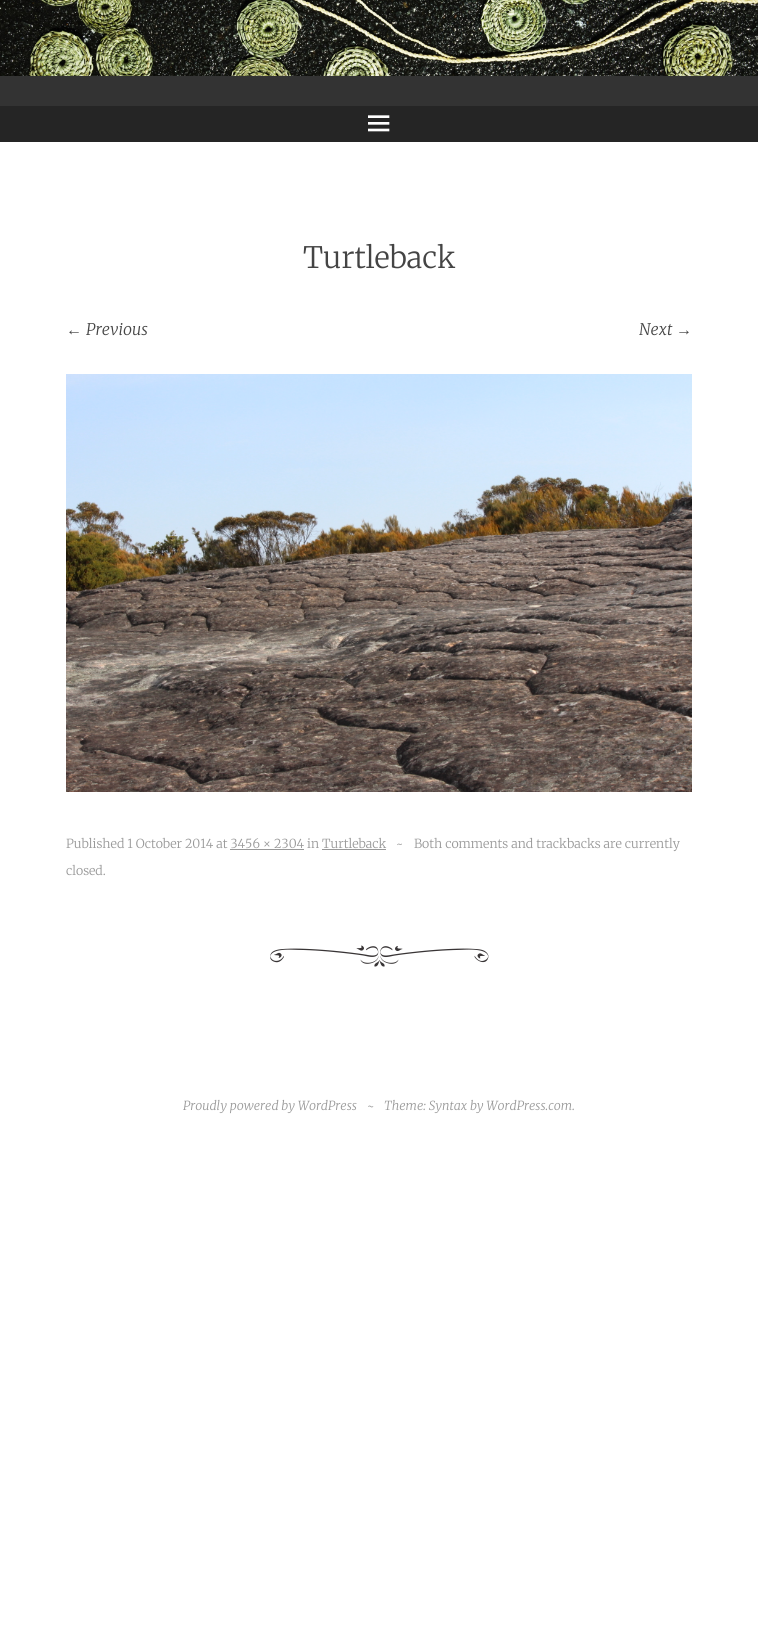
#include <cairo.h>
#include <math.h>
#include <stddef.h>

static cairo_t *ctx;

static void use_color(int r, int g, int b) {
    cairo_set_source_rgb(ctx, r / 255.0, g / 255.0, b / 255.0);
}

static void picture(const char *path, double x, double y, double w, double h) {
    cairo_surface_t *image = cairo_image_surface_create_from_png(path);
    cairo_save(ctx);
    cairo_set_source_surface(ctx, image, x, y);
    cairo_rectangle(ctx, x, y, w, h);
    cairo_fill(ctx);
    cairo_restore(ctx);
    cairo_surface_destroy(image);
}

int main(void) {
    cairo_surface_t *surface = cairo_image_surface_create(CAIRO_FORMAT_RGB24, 758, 1652);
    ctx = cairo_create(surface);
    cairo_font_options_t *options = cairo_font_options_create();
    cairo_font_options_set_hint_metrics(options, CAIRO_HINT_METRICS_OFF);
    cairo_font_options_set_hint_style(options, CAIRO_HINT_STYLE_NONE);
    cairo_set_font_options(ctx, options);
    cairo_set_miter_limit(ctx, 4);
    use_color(255, 255, 255);
    cairo_paint(ctx);
    use_color(51, 51, 51);
    cairo_rectangle(ctx, 0, 76, 758, 30);
    cairo_fill(ctx);
    picture("img1.png", 0, 0, 758, 76);
    use_color(37, 37, 37);
    cairo_rectangle(ctx, 0, 106, 758, 36);
    cairo_fill(ctx);
    picture("img2.png", 368, 115, 22, 17);
    cairo_select_font_face(ctx, "Merriweather Light", CAIRO_FONT_SLANT_NORMAL, CAIRO_FONT_WEIGHT_NORMAL);
    cairo_set_font_size(ctx, 29.5);
    use_color(68, 68, 68);
    cairo_move_to(ctx, 303, 268);
    cairo_show_text(ctx, "Turtleback");
    cairo_select_font_face(ctx, "Liberation Serif", CAIRO_FONT_SLANT_ITALIC, CAIRO_FONT_WEIGHT_NORMAL);
    cairo_set_font_size(ctx, 16);
    cairo_move_to(ctx, 66, 335);
    cairo_show_text(ctx, "←");
    cairo_select_font_face(ctx, "Merriweather Light", CAIRO_FONT_SLANT_ITALIC, CAIRO_FONT_WEIGHT_NORMAL);
    cairo_move_to(ctx, 86, 335);
    cairo_show_text(ctx, "Previous");
    cairo_move_to(ctx, 639, 335);
    cairo_show_text(ctx, "Next");
    cairo_select_font_face(ctx, "Liberation Serif", CAIRO_FONT_SLANT_ITALIC, CAIRO_FONT_WEIGHT_NORMAL);
    cairo_move_to(ctx, 676, 335);
    cairo_show_text(ctx, "→");
    picture("img3.png", 66, 374, 626, 418);
    cairo_select_font_face(ctx, "Merriweather Light", CAIRO_FONT_SLANT_NORMAL, CAIRO_FONT_WEIGHT_NORMAL);
    cairo_set_font_size(ctx, 12.45);
    use_color(153, 153, 153);
    cairo_move_to(ctx, 66, 848);
    cairo_show_text(ctx, "Published 1 October 2014 at 3456 × 2304 in Turtleback");
    cairo_move_to(ctx, 396, 848);
    cairo_show_text(ctx, "~");
    cairo_move_to(ctx, 414, 848);
    cairo_show_text(ctx, "Both comments and trackbacks are currently");
    cairo_rectangle(ctx, 230, 849, 74, 1);
    cairo_fill(ctx);
    cairo_rectangle(ctx, 322, 849, 64, 1);
    cairo_fill(ctx);
    cairo_move_to(ctx, 66, 875);
    cairo_show_text(ctx, "closed.");
    picture("img4.png", 270, 945, 219, 22);
    cairo_select_font_face(ctx, "Merriweather Light", CAIRO_FONT_SLANT_ITALIC, CAIRO_FONT_WEIGHT_NORMAL);
    cairo_move_to(ctx, 183, 1110);
    cairo_show_text(ctx, "Proudly powered by WordPress");
    cairo_move_to(ctx, 367, 1110);
    cairo_show_text(ctx, "~");
    cairo_move_to(ctx, 384, 1110);
    cairo_show_text(ctx, "Theme: Syntax by WordPress.com.");
    cairo_surface_write_to_png(surface, "result.png");
    cairo_font_options_destroy(options);
    cairo_destroy(ctx);
    cairo_surface_destroy(surface);
    return 0;
}
